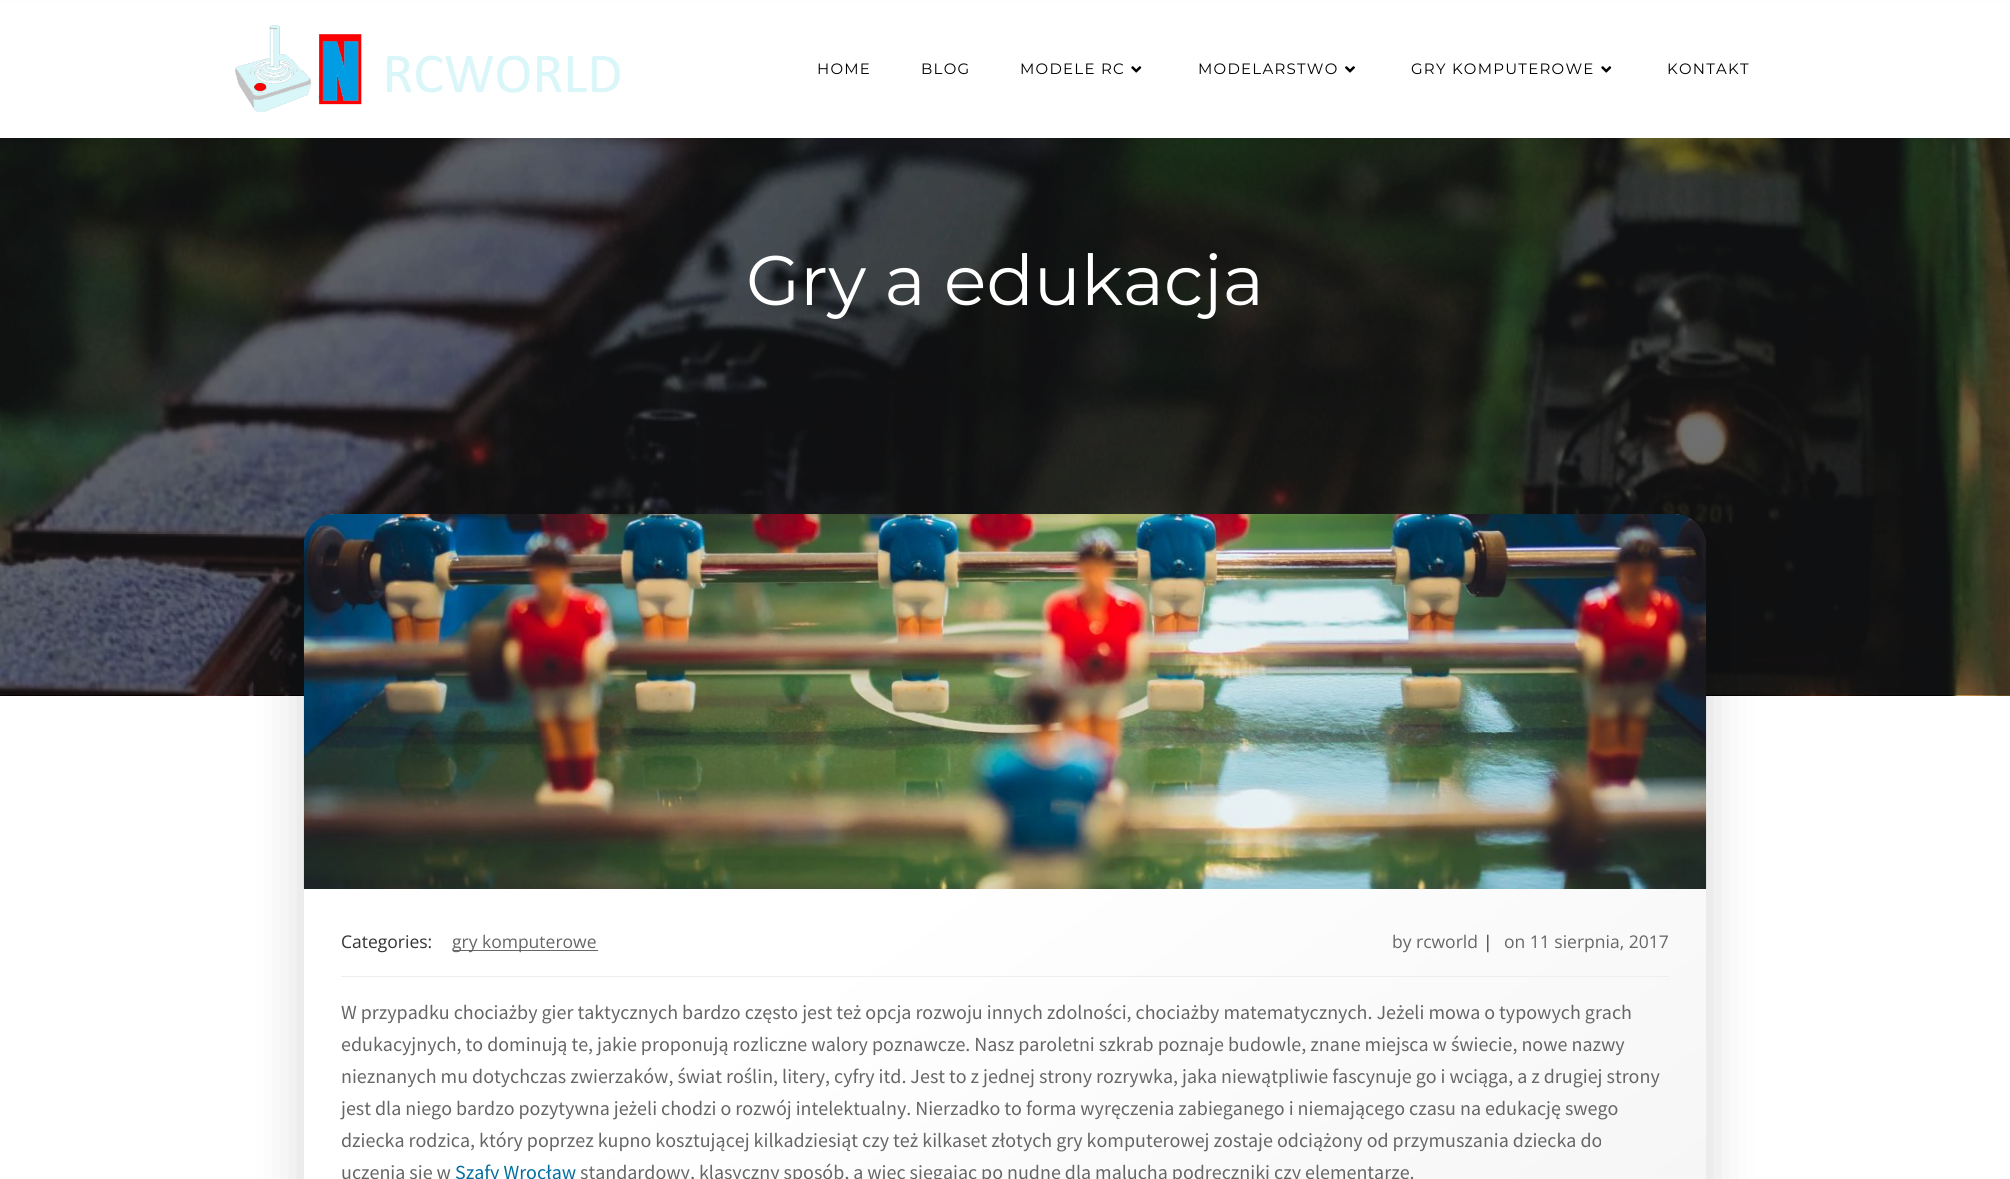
#include <cairo.h>
#include <math.h>
#include <stddef.h>

static cairo_t *ctx;

static void use_color(int r, int g, int b) {
    cairo_set_source_rgb(ctx, r / 255.0, g / 255.0, b / 255.0);
}

static void spaced_text(double x, double y, const char *s, double letter, double word) {
    cairo_move_to(ctx, x, y);
    while (*s) {
        char ch[5] = {0};
        int n = 0;
        do ch[n++] = *s++; while ((*s & 0xC0) == 0x80);
        cairo_show_text(ctx, ch);
        cairo_rel_move_to(ctx, letter + word * (*ch == ' '), 0);
    }
}

static void round_rect(double x, double y, double w, double h, double r) {
    cairo_new_sub_path(ctx);
    cairo_arc(ctx, x + w - r, y + h - r, r, 0, M_PI / 2);
    cairo_arc(ctx, x + r, y + h - r, r, M_PI / 2, M_PI);
    cairo_arc(ctx, x + r, y + r, r, M_PI, 1.5 * M_PI);
    cairo_arc(ctx, x + w - r, y + r, r, 1.5 * M_PI, 2 * M_PI);
    cairo_close_path(ctx);
}

static void shadow(double x, double y, double w, double h, double r, double blur, double alpha) {
    cairo_push_group_with_content(ctx, CAIRO_CONTENT_ALPHA);
    cairo_set_operator(ctx, CAIRO_OPERATOR_SOURCE);
    for (int i = 15; i >= -15 && fmin(w, h) + blur * i / 3 > 0; i -= 2) {
        double e = blur * i / 6;
        cairo_set_source_rgba(ctx, 0, 0, 0, alpha * erfc((i - 1) / 8.5) / 2);
        round_rect(x - e, y - e, w + 2 * e, h + 2 * e, fmax(0, fmin(r + e + blur * .6, fmin(w, h) / 2 + e)));
        cairo_fill(ctx);
    }
    cairo_pattern_t *soft = cairo_pop_group(ctx);
    cairo_mask(ctx, soft);
    cairo_pattern_destroy(soft);
}

static void picture(const char *path, double x, double y, double w, double h) {
    cairo_surface_t *image = cairo_image_surface_create_from_png(path);
    cairo_save(ctx);
    cairo_set_source_surface(ctx, image, x, y);
    cairo_rectangle(ctx, x, y, w, h);
    cairo_fill(ctx);
    cairo_restore(ctx);
    cairo_surface_destroy(image);
}

int main(void) {
    cairo_surface_t *surface = cairo_image_surface_create(CAIRO_FORMAT_RGB24, 2010, 1179);
    ctx = cairo_create(surface);
    cairo_font_options_t *options = cairo_font_options_create();
    cairo_font_options_set_hint_metrics(options, CAIRO_HINT_METRICS_OFF);
    cairo_font_options_set_hint_style(options, CAIRO_HINT_STYLE_NONE);
    cairo_set_font_options(ctx, options);
    cairo_set_miter_limit(ctx, 4);
    cairo_pattern_t *gradient;
    use_color(255, 255, 255);
    cairo_paint(ctx);
    picture("img4.png", 0, 138, 2010, 558);
    use_color(0, 0, 0);
    shadow(0, 6, 2010, 138, 0, 6, 0.05);
    use_color(255, 255, 255);
    cairo_rectangle(ctx, 0, 1, 2010, 137);
    cairo_fill(ctx);
    picture("img1.png", 235, 25, 385, 87);
    cairo_select_font_face(ctx, "Montserrat", CAIRO_FONT_SLANT_NORMAL, CAIRO_FONT_WEIGHT_NORMAL);
    cairo_set_font_size(ctx, 15);
    use_color(0, 0, 0);
    spaced_text(817, 74, "HOME", 1.25, 0);
    spaced_text(921, 74, "BLOG", 1.25, 0);
    spaced_text(1020, 74, "MODELE RC", 1.25, 0);
    picture("img2.png", 1131, 66, 11, 7);
    spaced_text(1198, 74, "MODELARSTWO", 1.25, 0);
    picture("img3.png", 1345, 66, 10, 7);
    spaced_text(1411, 74, "GRY KOMPUTEROWE", 1.25, 0);
    picture("img2.png", 1601, 66, 11, 7);
    spaced_text(1667, 74, "KONTAKT", 1.25, 0);
    cairo_set_font_size(ctx, 70);
    use_color(255, 255, 255);
    cairo_move_to(ctx, 746, 305);
    cairo_show_text(ctx, "Gry a edukacja");
    cairo_save(ctx);
    cairo_rectangle(ctx, 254, 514, 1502, 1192);
    cairo_clip(ctx);
    use_color(0, 0, 0);
    shadow(301, 536, 1408, 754, 36, 25, 0.15);
    cairo_restore(ctx);
    gradient = cairo_pattern_create_linear(552, 340, 1458, 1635);
    cairo_pattern_add_color_stop_rgba(gradient, 0.42, 1, 1, 1, 1);
    cairo_pattern_add_color_stop_rgba(gradient, 1, 0.953, 0.953, 0.953, 1);
    cairo_set_source(ctx, gradient);
    cairo_pattern_destroy(gradient);
    cairo_new_path(ctx);
    cairo_move_to(ctx, 338, 514);
    cairo_line_to(ctx, 1672, 514);
    cairo_curve_to(ctx, 1691, 514, 1706, 529, 1706, 548);
    cairo_line_to(ctx, 1706, 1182);
    cairo_curve_to(ctx, 1706, 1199, 1692, 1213, 1675, 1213);
    cairo_line_to(ctx, 335, 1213);
    cairo_curve_to(ctx, 318, 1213, 304, 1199, 304, 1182);
    cairo_line_to(ctx, 304, 548);
    cairo_curve_to(ctx, 304, 529, 319, 514, 338, 514);
    cairo_close_path(ctx);
    cairo_fill(ctx);
    picture("img5.png", 303, 514, 1404, 375);
    use_color(238, 238, 238);
    cairo_rectangle(ctx, 341, 976, 1328, 1);
    cairo_fill(ctx);
    cairo_select_font_face(ctx, "Open Sans", CAIRO_FONT_SLANT_NORMAL, CAIRO_FONT_WEIGHT_NORMAL);
    cairo_set_font_size(ctx, 17.5);
    use_color(51, 51, 51);
    cairo_move_to(ctx, 341, 948);
    cairo_show_text(ctx, "Categories:");
    use_color(102, 102, 102);
    cairo_rectangle(ctx, 453, 950, 145, 1);
    cairo_fill(ctx);
    cairo_move_to(ctx, 452, 948);
    cairo_show_text(ctx, "gry komputerowe");
    cairo_move_to(ctx, 1392, 948);
    cairo_show_text(ctx, "by rcworld");
    use_color(51, 51, 51);
    cairo_move_to(ctx, 1483, 948);
    cairo_show_text(ctx, "|");
    use_color(102, 102, 102);
    cairo_move_to(ctx, 1504, 948);
    cairo_show_text(ctx, "on 11 sierpnia, 2017");
    cairo_select_font_face(ctx, "Source Sans Pro", CAIRO_FONT_SLANT_NORMAL, CAIRO_FONT_WEIGHT_NORMAL);
    cairo_set_font_size(ctx, 20);
    cairo_move_to(ctx, 341, 1019);
    cairo_show_text(ctx, "W przypadku chociażby gier taktycznych bardzo często jest też opcja rozwoju innych zdolności, chociażby matematycznych. Jeżeli mowa o typowych grach");
    cairo_move_to(ctx, 341, 1051);
    cairo_show_text(ctx, "edukacyjnych, to dominują te, jakie proponują rozliczne walory poznawcze. Nasz paroletni szkrab poznaje budowle, znane miejsca w świecie, nowe nazwy");
    cairo_move_to(ctx, 341, 1083);
    cairo_show_text(ctx, "nieznanych mu dotychczas zwierzaków, świat roślin, litery, cyfry itd. Jest to z jednej strony rozrywka, jaka niewątpliwie fascynuje go i wciąga, a z drugiej strony");
    cairo_move_to(ctx, 341, 1115);
    cairo_show_text(ctx, "jest dla niego bardzo pozytywna jeżeli chodzi o rozwój intelektualny. Nierzadko to forma wyręczenia zabieganego i niemającego czasu na edukację swego");
    cairo_move_to(ctx, 341, 1147);
    cairo_show_text(ctx, "dziecka rodzica, który poprzez kupno kosztującej kilkadziesiąt czy też kilkaset złotych gry komputerowej zostaje odciążony od przymuszania dziecka do");
    cairo_move_to(ctx, 341, 1179);
    cairo_show_text(ctx, "uczenia się w");
    use_color(2, 110, 159);
    cairo_move_to(ctx, 455, 1179);
    cairo_show_text(ctx, "Szafy Wrocław");
    use_color(102, 102, 102);
    cairo_move_to(ctx, 580, 1179);
    cairo_show_text(ctx, "standardowy, klasyczny sposób, a więc sięgając po nudne dla malucha podręczniki czy elementarze.");
    cairo_surface_write_to_png(surface, "result.png");
    cairo_font_options_destroy(options);
    cairo_destroy(ctx);
    cairo_surface_destroy(surface);
    return 0;
}
